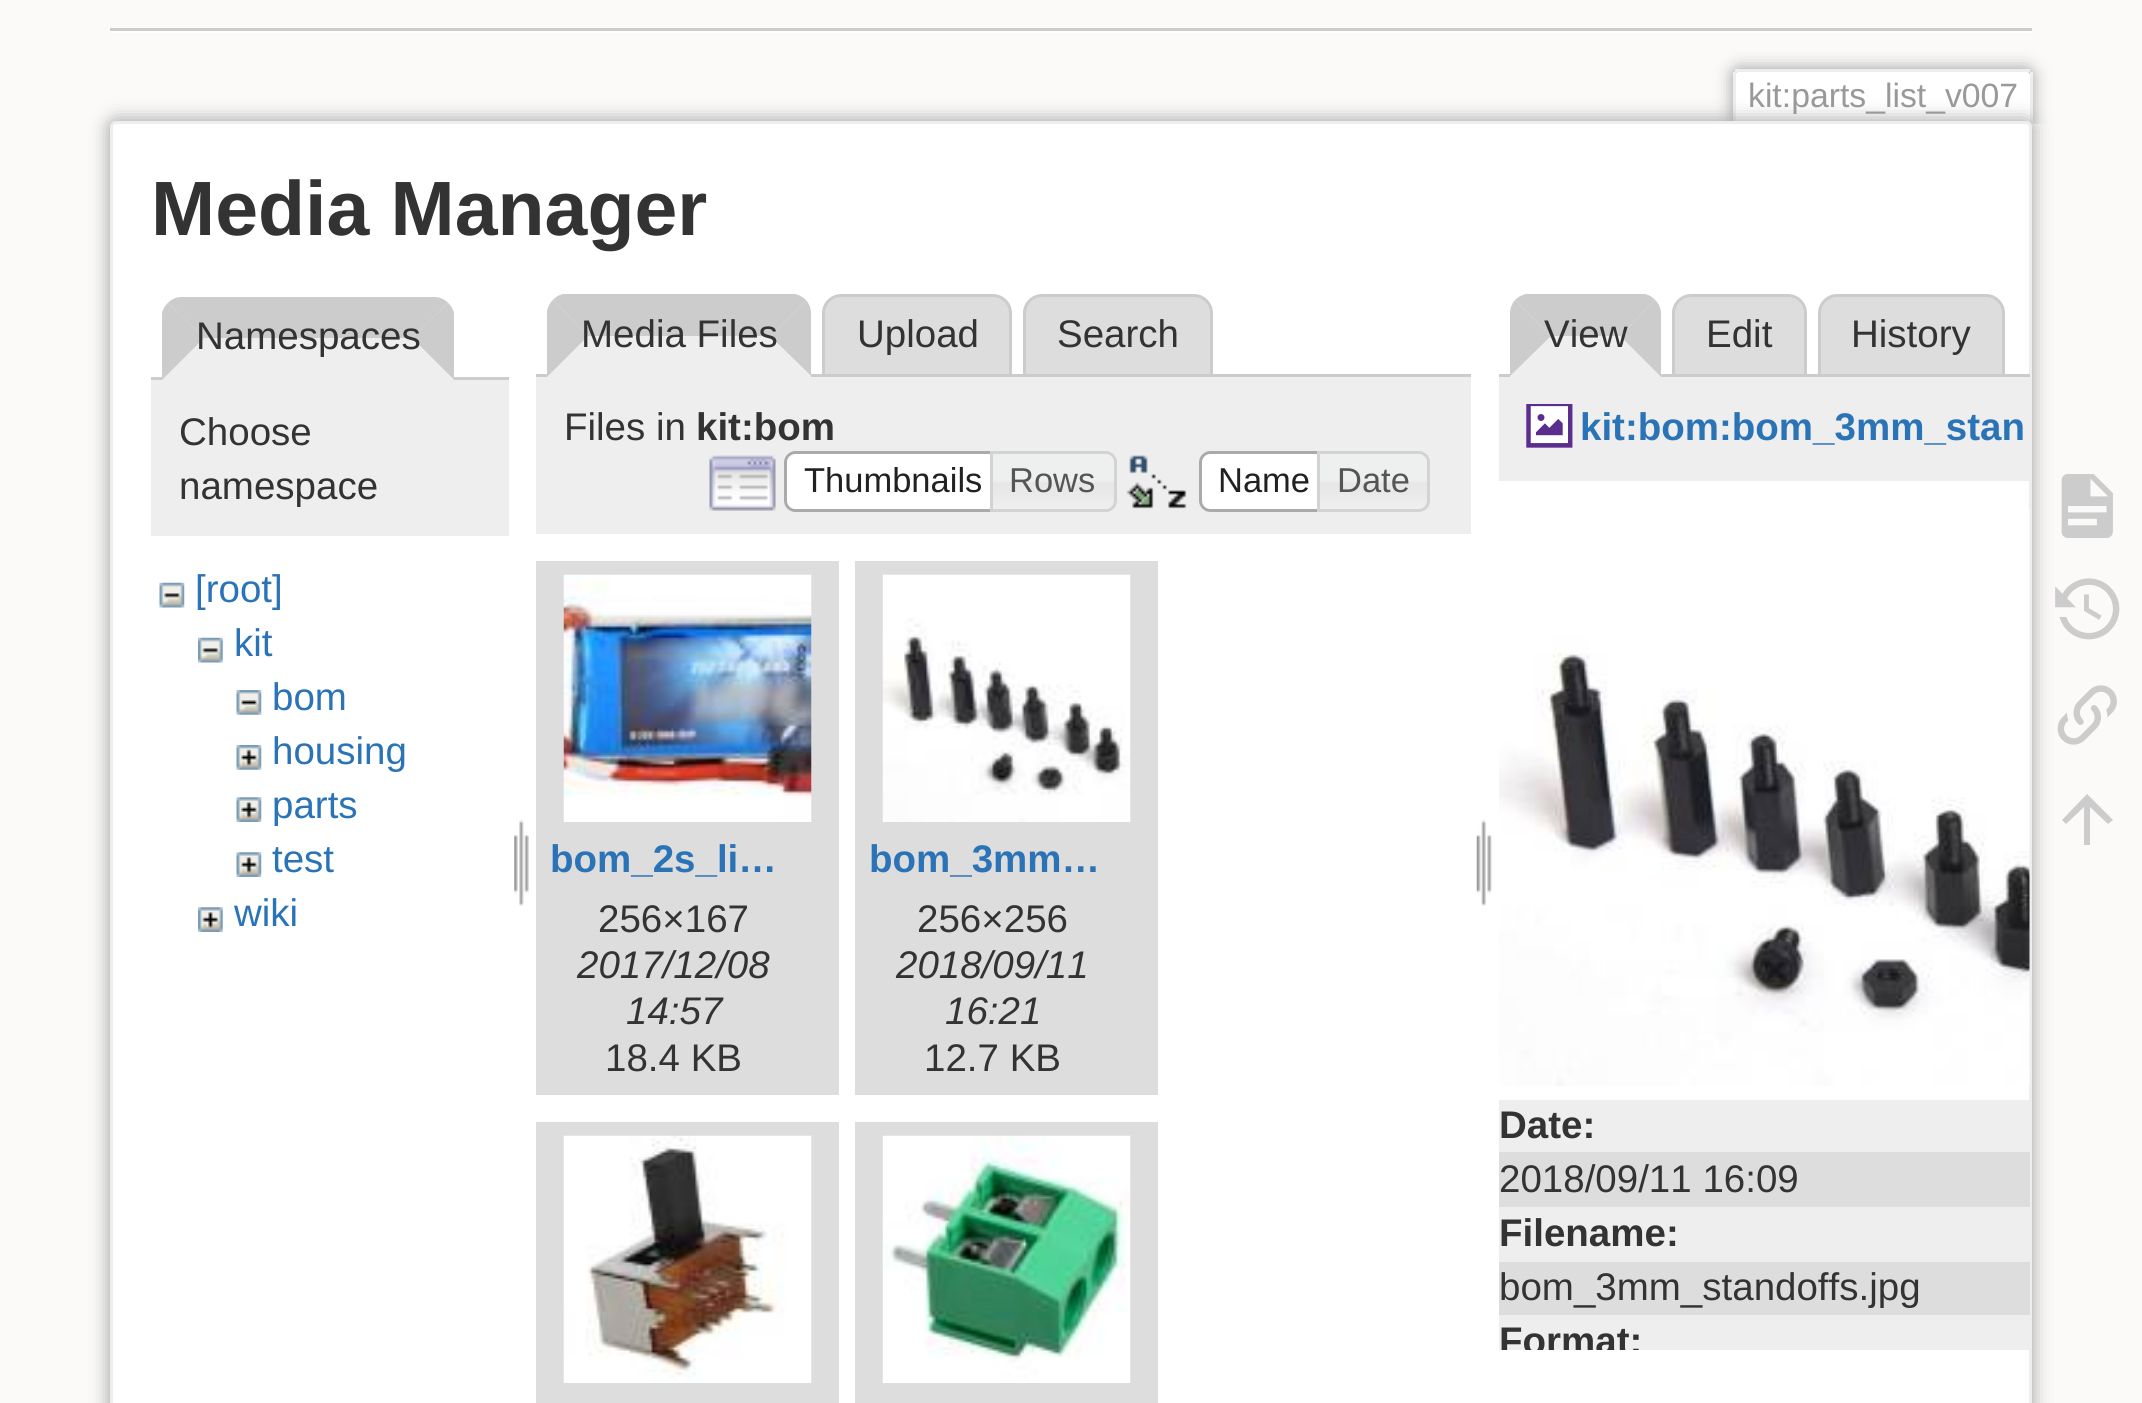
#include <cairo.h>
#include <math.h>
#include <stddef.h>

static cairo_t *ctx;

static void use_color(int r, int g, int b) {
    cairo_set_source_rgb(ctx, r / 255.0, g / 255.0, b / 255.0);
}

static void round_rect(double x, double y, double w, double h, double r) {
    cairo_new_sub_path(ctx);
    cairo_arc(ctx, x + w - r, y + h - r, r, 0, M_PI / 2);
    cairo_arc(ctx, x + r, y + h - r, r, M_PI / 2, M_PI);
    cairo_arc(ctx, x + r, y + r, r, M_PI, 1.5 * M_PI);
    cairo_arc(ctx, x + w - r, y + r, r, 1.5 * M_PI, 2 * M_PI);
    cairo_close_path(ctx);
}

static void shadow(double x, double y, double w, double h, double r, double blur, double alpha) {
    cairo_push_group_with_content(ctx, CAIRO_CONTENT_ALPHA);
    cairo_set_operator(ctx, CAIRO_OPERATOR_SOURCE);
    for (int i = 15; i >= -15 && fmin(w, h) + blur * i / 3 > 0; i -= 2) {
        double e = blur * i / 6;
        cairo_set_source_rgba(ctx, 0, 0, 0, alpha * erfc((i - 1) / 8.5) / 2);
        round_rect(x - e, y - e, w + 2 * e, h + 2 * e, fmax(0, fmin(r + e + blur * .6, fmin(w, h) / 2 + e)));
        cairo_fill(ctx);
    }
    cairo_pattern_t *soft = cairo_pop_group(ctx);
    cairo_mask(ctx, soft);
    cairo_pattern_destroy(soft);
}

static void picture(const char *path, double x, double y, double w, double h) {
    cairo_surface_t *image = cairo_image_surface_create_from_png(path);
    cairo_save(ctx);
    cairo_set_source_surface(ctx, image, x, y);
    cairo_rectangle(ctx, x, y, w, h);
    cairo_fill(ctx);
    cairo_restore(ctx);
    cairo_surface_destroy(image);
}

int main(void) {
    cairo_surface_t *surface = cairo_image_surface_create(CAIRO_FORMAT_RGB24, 2142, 1403);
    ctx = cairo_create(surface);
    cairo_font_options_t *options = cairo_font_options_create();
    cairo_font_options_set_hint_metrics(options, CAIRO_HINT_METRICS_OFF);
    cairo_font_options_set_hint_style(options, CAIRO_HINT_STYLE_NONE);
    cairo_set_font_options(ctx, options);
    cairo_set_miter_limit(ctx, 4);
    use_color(251, 250, 249);
    cairo_paint(ctx);
    use_color(255, 255, 255);
    cairo_rectangle(ctx, 110, 31, 1922, 2);
    cairo_fill(ctx);
    use_color(204, 204, 204);
    cairo_rectangle(ctx, 110, 28, 1922, 3);
    cairo_fill(ctx);
    cairo_save(ctx);
    cairo_rectangle(ctx, 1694, 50, 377, 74);
    cairo_clip(ctx);
    use_color(153, 153, 153);
    shadow(1733, 69, 299, 55, 6, 8.5, 1);
    cairo_restore(ctx);
    use_color(255, 255, 255);
    cairo_new_path(ctx);
    cairo_move_to(ctx, 1738, 72);
    cairo_line_to(ctx, 2027, 72);
    cairo_curve_to(ctx, 2028.5, 72, 2030, 73.5, 2030, 75);
    cairo_line_to(ctx, 2030, 124);
    cairo_line_to(ctx, 1735, 124);
    cairo_line_to(ctx, 1735, 75);
    cairo_curve_to(ctx, 1735, 73.5, 1736.5, 72, 1738, 72);
    cairo_close_path(ctx);
    cairo_fill(ctx);
    use_color(238, 238, 238);
    cairo_rectangle(ctx, 1735, 69, 295, 3);
    cairo_fill(ctx);
    cairo_rectangle(ctx, 2030, 72, 3, 52);
    cairo_fill(ctx);
    cairo_rectangle(ctx, 1733, 72, 3, 52);
    cairo_fill(ctx);
    cairo_select_font_face(ctx, "Liberation Sans", CAIRO_FONT_SLANT_NORMAL, CAIRO_FONT_WEIGHT_NORMAL);
    cairo_set_font_size(ctx, 33.75);
    use_color(153, 153, 153);
    cairo_move_to(ctx, 1748, 107);
    cairo_show_text(ctx, "kit:parts_list_v007");
    use_color(153, 153, 153);
    shadow(110, 121, 1922, 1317, 6, 9.5, 1);
    use_color(255, 255, 255);
    round_rect(111.5, 122.5, 1919, 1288, 4.5);
    cairo_fill_preserve(ctx);
    use_color(238, 238, 238);
    cairo_set_line_width(ctx, 3);
    cairo_stroke(ctx);
    cairo_select_font_face(ctx, "Liberation Sans", CAIRO_FONT_SLANT_NORMAL, CAIRO_FONT_WEIGHT_BOLD);
    cairo_set_font_size(ctx, 77);
    use_color(51, 51, 51);
    cairo_move_to(ctx, 151, 235);
    cairo_show_text(ctx, "Media Manager");
    use_color(204, 204, 204);
    cairo_rectangle(ctx, 151, 377, 358, 3);
    cairo_fill(ctx);
    use_color(238, 238, 238);
    cairo_new_path(ctx);
    cairo_move_to(ctx, 181, 297);
    cairo_line_to(ctx, 435, 297);
    cairo_curve_to(ctx, 445.5, 297, 454, 305.5, 454, 316);
    cairo_line_to(ctx, 454, 380);
    cairo_line_to(ctx, 162, 380);
    cairo_line_to(ctx, 162, 316);
    cairo_curve_to(ctx, 162, 305.5, 170.5, 297, 181, 297);
    cairo_close_path(ctx);
    cairo_fill(ctx);
    use_color(204, 204, 204);
    cairo_new_path(ctx);
    cairo_move_to(ctx, 182, 297);
    cairo_line_to(ctx, 434, 297);
    cairo_curve_to(ctx, 439, 297, 444, 299, 448, 303);
    cairo_line_to(ctx, 412, 338);
    cairo_line_to(ctx, 204, 338);
    cairo_line_to(ctx, 168, 303);
    cairo_curve_to(ctx, 172, 299, 177, 297, 182, 297);
    cairo_close_path(ctx);
    cairo_fill(ctx);
    cairo_new_path(ctx);
    cairo_move_to(ctx, 448, 303);
    cairo_line_to(ctx, 412, 338);
    cairo_line_to(ctx, 454, 380);
    cairo_line_to(ctx, 454, 313);
    cairo_curve_to(ctx, 453, 309, 451, 306, 448, 303);
    cairo_close_path(ctx);
    cairo_fill(ctx);
    use_color(238, 238, 238);
    cairo_new_path(ctx);
    cairo_move_to(ctx, 454, 380);
    cairo_line_to(ctx, 412, 338);
    cairo_line_to(ctx, 204, 338);
    cairo_line_to(ctx, 162, 380);
    cairo_close_path(ctx);
    cairo_fill(ctx);
    use_color(204, 204, 204);
    cairo_new_path(ctx);
    cairo_move_to(ctx, 162, 380);
    cairo_line_to(ctx, 204, 338);
    cairo_line_to(ctx, 168, 303);
    cairo_curve_to(ctx, 165, 306, 163, 309, 162, 313);
    cairo_close_path(ctx);
    cairo_fill(ctx);
    cairo_select_font_face(ctx, "Liberation Sans", CAIRO_FONT_SLANT_NORMAL, CAIRO_FONT_WEIGHT_NORMAL);
    cairo_set_font_size(ctx, 38.5);
    use_color(51, 51, 51);
    cairo_move_to(ctx, 196, 349);
    cairo_show_text(ctx, "Namespaces");
    use_color(238, 238, 238);
    cairo_rectangle(ctx, 151, 380, 358, 156);
    cairo_fill(ctx);
    use_color(51, 51, 51);
    cairo_move_to(ctx, 179, 445);
    cairo_show_text(ctx, "Choose");
    cairo_move_to(ctx, 179, 499);
    cairo_show_text(ctx, "namespace");
    picture("img1.png", 159, 582, 26, 26);
    use_color(43, 115, 183);
    cairo_move_to(ctx, 195, 602);
    cairo_show_text(ctx, "[root]");
    picture("img2.png", 198, 637, 25, 26);
    cairo_move_to(ctx, 234, 656);
    cairo_show_text(ctx, "kit");
    picture("img3.png", 236, 690, 26, 25);
    cairo_move_to(ctx, 272, 710);
    cairo_show_text(ctx, "bom");
    picture("img4.png", 236, 745, 26, 25);
    cairo_move_to(ctx, 272, 764);
    cairo_show_text(ctx, "housing");
    picture("img5.png", 236, 797, 26, 25);
    cairo_move_to(ctx, 272, 818);
    cairo_show_text(ctx, "parts");
    picture("img5.png", 236, 852, 26, 25);
    cairo_move_to(ctx, 272, 872);
    cairo_show_text(ctx, "test");
    picture("img6.png", 198, 907, 25, 25);
    cairo_move_to(ctx, 234, 926);
    cairo_show_text(ctx, "wiki");
    picture("img7.png", 514, 819, 15, 87);
    use_color(221, 221, 221);
    cairo_new_path(ctx);
    cairo_move_to(ctx, 841, 295.5);
    cairo_line_to(ctx, 993, 295.5);
    cairo_curve_to(ctx, 1002.5, 295.5, 1010.5, 303.5, 1010.5, 313);
    cairo_line_to(ctx, 1010.5, 375.5);
    cairo_line_to(ctx, 823.5, 375.5);
    cairo_line_to(ctx, 823.5, 313);
    cairo_curve_to(ctx, 823.5, 303.5, 831.5, 295.5, 841, 295.5);
    cairo_close_path(ctx);
    cairo_fill_preserve(ctx);
    use_color(204, 204, 204);
    cairo_stroke(ctx);
    use_color(221, 221, 221);
    cairo_new_path(ctx);
    cairo_move_to(ctx, 1042, 295.5);
    cairo_line_to(ctx, 1194, 295.5);
    cairo_curve_to(ctx, 1203.5, 295.5, 1211.5, 303.5, 1211.5, 313);
    cairo_line_to(ctx, 1211.5, 375.5);
    cairo_line_to(ctx, 1024.5, 375.5);
    cairo_line_to(ctx, 1024.5, 313);
    cairo_curve_to(ctx, 1024.5, 303.5, 1032.5, 295.5, 1042, 295.5);
    cairo_close_path(ctx);
    cairo_fill_preserve(ctx);
    use_color(204, 204, 204);
    cairo_stroke(ctx);
    cairo_rectangle(ctx, 536, 374, 935, 3);
    cairo_fill(ctx);
    use_color(238, 238, 238);
    cairo_new_path(ctx);
    cairo_move_to(ctx, 566, 294);
    cairo_line_to(ctx, 792, 294);
    cairo_curve_to(ctx, 802.5, 294, 811, 302.5, 811, 313);
    cairo_line_to(ctx, 811, 377);
    cairo_line_to(ctx, 547, 377);
    cairo_line_to(ctx, 547, 313);
    cairo_curve_to(ctx, 547, 302.5, 555.5, 294, 566, 294);
    cairo_close_path(ctx);
    cairo_fill(ctx);
    use_color(204, 204, 204);
    cairo_new_path(ctx);
    cairo_move_to(ctx, 795, 294);
    cairo_line_to(ctx, 563, 294);
    cairo_curve_to(ctx, 559, 295, 556, 297, 553, 300);
    cairo_line_to(ctx, 588, 336);
    cairo_line_to(ctx, 770, 336);
    cairo_line_to(ctx, 806, 300);
    cairo_curve_to(ctx, 803, 297, 799, 295, 795, 294);
    cairo_close_path(ctx);
    cairo_fill(ctx);
    cairo_new_path(ctx);
    cairo_move_to(ctx, 806, 300);
    cairo_line_to(ctx, 770, 336);
    cairo_line_to(ctx, 811, 376);
    cairo_line_to(ctx, 811, 314);
    cairo_curve_to(ctx, 811, 308, 809, 304, 806, 300);
    cairo_close_path(ctx);
    cairo_fill(ctx);
    use_color(238, 238, 238);
    cairo_new_path(ctx);
    cairo_move_to(ctx, 811, 376);
    cairo_line_to(ctx, 770, 336);
    cairo_line_to(ctx, 588, 336);
    cairo_line_to(ctx, 547, 377);
    cairo_close_path(ctx);
    cairo_fill(ctx);
    use_color(204, 204, 204);
    cairo_new_path(ctx);
    cairo_move_to(ctx, 547, 377);
    cairo_line_to(ctx, 588, 336);
    cairo_line_to(ctx, 553, 300);
    cairo_curve_to(ctx, 550, 303, 548, 307, 547, 311);
    cairo_close_path(ctx);
    cairo_fill(ctx);
    use_color(51, 51, 51);
    cairo_move_to(ctx, 581, 347);
    cairo_show_text(ctx, "Media Files");
    cairo_move_to(ctx, 857, 347);
    cairo_show_text(ctx, "Upload");
    cairo_move_to(ctx, 1057, 347);
    cairo_show_text(ctx, "Search");
    use_color(238, 238, 238);
    cairo_rectangle(ctx, 536, 377, 935, 157);
    cairo_fill(ctx);
    use_color(51, 51, 51);
    cairo_move_to(ctx, 564, 440);
    cairo_show_text(ctx, "Files in");
    cairo_select_font_face(ctx, "Liberation Sans", CAIRO_FONT_SLANT_NORMAL, CAIRO_FONT_WEIGHT_BOLD);
    cairo_move_to(ctx, 696, 440);
    cairo_show_text(ctx, "kit:bom");
    picture("img8.png", 709, 455, 67, 56);
    use_color(255, 255, 255);
    cairo_new_path(ctx);
    cairo_move_to(ctx, 795, 451);
    cairo_line_to(ctx, 1004, 451);
    cairo_line_to(ctx, 1004, 512);
    cairo_line_to(ctx, 795, 512);
    cairo_curve_to(ctx, 789, 512, 784, 507, 784, 501);
    cairo_line_to(ctx, 784, 462);
    cairo_curve_to(ctx, 784, 456, 789, 451, 795, 451);
    cairo_close_path(ctx);
    cairo_fill(ctx);
    picture("img9.png", 784, 451, 9, 9);
    cairo_new_path(ctx);
    cairo_move_to(ctx, 795, 452.5);
    cairo_line_to(ctx, 1002.5, 452.5);
    cairo_line_to(ctx, 1002.5, 510.5);
    cairo_line_to(ctx, 795, 510.5);
    cairo_curve_to(ctx, 790, 510.5, 785.5, 506, 785.5, 501);
    cairo_line_to(ctx, 785.5, 462);
    cairo_curve_to(ctx, 785.5, 457, 790, 452.5, 795, 452.5);
    cairo_close_path(ctx);
    use_color(170, 170, 170);
    cairo_stroke(ctx);
    cairo_select_font_face(ctx, "Liberation Sans", CAIRO_FONT_SLANT_NORMAL, CAIRO_FONT_WEIGHT_NORMAL);
    cairo_set_font_size(ctx, 34.5);
    use_color(33, 33, 33);
    cairo_move_to(ctx, 804, 492);
    cairo_show_text(ctx, "Thumbnails");
    picture("img10.png", 993, 451, 123, 60);
    cairo_new_path(ctx);
    cairo_move_to(ctx, 991.5, 452.5);
    cairo_line_to(ctx, 1106, 452.5);
    cairo_curve_to(ctx, 1111, 452.5, 1115.5, 457, 1115.5, 462);
    cairo_line_to(ctx, 1115.5, 501);
    cairo_curve_to(ctx, 1115.5, 506, 1111, 510.5, 1106, 510.5);
    cairo_line_to(ctx, 991.5, 510.5);
    cairo_close_path(ctx);
    use_color(211, 211, 211);
    cairo_stroke(ctx);
    use_color(85, 85, 85);
    cairo_move_to(ctx, 1009, 492);
    cairo_show_text(ctx, "Rows");
    picture("img11.png", 1126, 455, 61, 54);
    use_color(255, 255, 255);
    cairo_new_path(ctx);
    cairo_move_to(ctx, 1210, 451);
    cairo_line_to(ctx, 1331, 451);
    cairo_line_to(ctx, 1331, 512);
    cairo_line_to(ctx, 1210, 512);
    cairo_curve_to(ctx, 1204, 512, 1199, 507, 1199, 501);
    cairo_line_to(ctx, 1199, 462);
    cairo_curve_to(ctx, 1199, 456, 1204, 451, 1210, 451);
    cairo_close_path(ctx);
    cairo_fill(ctx);
    picture("img12.png", 1199, 451, 9, 9);
    cairo_new_path(ctx);
    cairo_move_to(ctx, 1210, 452.5);
    cairo_line_to(ctx, 1329.5, 452.5);
    cairo_line_to(ctx, 1329.5, 510.5);
    cairo_line_to(ctx, 1210, 510.5);
    cairo_curve_to(ctx, 1205, 510.5, 1200.5, 506, 1200.5, 501);
    cairo_line_to(ctx, 1200.5, 462);
    cairo_curve_to(ctx, 1200.5, 457, 1205, 452.5, 1210, 452.5);
    cairo_close_path(ctx);
    use_color(170, 170, 170);
    cairo_stroke(ctx);
    use_color(33, 33, 33);
    cairo_move_to(ctx, 1218, 492);
    cairo_show_text(ctx, "Name");
    picture("img13.png", 1320, 451, 110, 60);
    cairo_new_path(ctx);
    cairo_move_to(ctx, 1318.5, 452.5);
    cairo_line_to(ctx, 1419, 452.5);
    cairo_curve_to(ctx, 1424, 452.5, 1428.5, 457, 1428.5, 462);
    cairo_line_to(ctx, 1428.5, 501);
    cairo_curve_to(ctx, 1428.5, 506, 1424, 510.5, 1419, 510.5);
    cairo_line_to(ctx, 1318.5, 510.5);
    cairo_close_path(ctx);
    use_color(211, 211, 211);
    cairo_stroke(ctx);
    use_color(85, 85, 85);
    cairo_move_to(ctx, 1337, 492);
    cairo_show_text(ctx, "Date");
    use_color(221, 221, 221);
    cairo_rectangle(ctx, 536, 561, 303, 534);
    cairo_fill(ctx);
    picture("img14.png", 563, 574, 249, 248);
    cairo_select_font_face(ctx, "Liberation Sans", CAIRO_FONT_SLANT_NORMAL, CAIRO_FONT_WEIGHT_BOLD);
    cairo_set_font_size(ctx, 38.5);
    use_color(43, 115, 183);
    cairo_move_to(ctx, 550, 872);
    cairo_show_text(ctx, "bom_2s_li…");
    cairo_select_font_face(ctx, "Liberation Sans", CAIRO_FONT_SLANT_NORMAL, CAIRO_FONT_WEIGHT_NORMAL);
    use_color(51, 51, 51);
    cairo_move_to(ctx, 598, 932);
    cairo_show_text(ctx, "256×167");
    cairo_select_font_face(ctx, "Liberation Sans", CAIRO_FONT_SLANT_ITALIC, CAIRO_FONT_WEIGHT_NORMAL);
    cairo_move_to(ctx, 577, 978);
    cairo_show_text(ctx, "2017/12/08");
    cairo_move_to(ctx, 626, 1024);
    cairo_show_text(ctx, "14:57");
    cairo_select_font_face(ctx, "Liberation Sans", CAIRO_FONT_SLANT_NORMAL, CAIRO_FONT_WEIGHT_NORMAL);
    cairo_move_to(ctx, 605, 1071);
    cairo_show_text(ctx, "18.4 KB");
    use_color(221, 221, 221);
    cairo_rectangle(ctx, 855, 561, 303, 534);
    cairo_fill(ctx);
    picture("img15.png", 882, 574, 249, 248);
    cairo_select_font_face(ctx, "Liberation Sans", CAIRO_FONT_SLANT_NORMAL, CAIRO_FONT_WEIGHT_BOLD);
    use_color(43, 115, 183);
    cairo_move_to(ctx, 869, 872);
    cairo_show_text(ctx, "bom_3mm…");
    cairo_select_font_face(ctx, "Liberation Sans", CAIRO_FONT_SLANT_NORMAL, CAIRO_FONT_WEIGHT_NORMAL);
    use_color(51, 51, 51);
    cairo_move_to(ctx, 917, 932);
    cairo_show_text(ctx, "256×256");
    cairo_select_font_face(ctx, "Liberation Sans", CAIRO_FONT_SLANT_ITALIC, CAIRO_FONT_WEIGHT_NORMAL);
    cairo_move_to(ctx, 896, 978);
    cairo_show_text(ctx, "2018/09/11");
    cairo_move_to(ctx, 945, 1024);
    cairo_show_text(ctx, "16:21");
    cairo_select_font_face(ctx, "Liberation Sans", CAIRO_FONT_SLANT_NORMAL, CAIRO_FONT_WEIGHT_NORMAL);
    cairo_move_to(ctx, 924, 1071);
    cairo_show_text(ctx, "12.7 KB");
    use_color(221, 221, 221);
    cairo_rectangle(ctx, 536, 1122, 303, 281);
    cairo_fill(ctx);
    picture("img16.png", 563, 1135, 249, 248);
    cairo_rectangle(ctx, 855, 1122, 303, 281);
    cairo_fill(ctx);
    picture("img17.png", 882, 1135, 249, 248);
    picture("img18.png", 1476, 819, 16, 87);
    cairo_new_path(ctx);
    cairo_move_to(ctx, 1691, 295.5);
    cairo_line_to(ctx, 1788, 295.5);
    cairo_curve_to(ctx, 1797.5, 295.5, 1805.5, 303.5, 1805.5, 313);
    cairo_line_to(ctx, 1805.5, 375.5);
    cairo_line_to(ctx, 1673.5, 375.5);
    cairo_line_to(ctx, 1673.5, 313);
    cairo_curve_to(ctx, 1673.5, 303.5, 1681.5, 295.5, 1691, 295.5);
    cairo_close_path(ctx);
    cairo_fill_preserve(ctx);
    use_color(204, 204, 204);
    cairo_stroke(ctx);
    use_color(221, 221, 221);
    cairo_new_path(ctx);
    cairo_move_to(ctx, 1837, 295.5);
    cairo_line_to(ctx, 1986, 295.5);
    cairo_curve_to(ctx, 1995.5, 295.5, 2003.5, 303.5, 2003.5, 313);
    cairo_line_to(ctx, 2003.5, 375.5);
    cairo_line_to(ctx, 1819.5, 375.5);
    cairo_line_to(ctx, 1819.5, 313);
    cairo_curve_to(ctx, 1819.5, 303.5, 1827.5, 295.5, 1837, 295.5);
    cairo_close_path(ctx);
    cairo_fill_preserve(ctx);
    use_color(204, 204, 204);
    cairo_stroke(ctx);
    cairo_rectangle(ctx, 1499, 374, 531, 3);
    cairo_fill(ctx);
    use_color(238, 238, 238);
    cairo_new_path(ctx);
    cairo_move_to(ctx, 1529, 294);
    cairo_line_to(ctx, 1642, 294);
    cairo_curve_to(ctx, 1652.5, 294, 1661, 302.5, 1661, 313);
    cairo_line_to(ctx, 1661, 377);
    cairo_line_to(ctx, 1510, 377);
    cairo_line_to(ctx, 1510, 313);
    cairo_curve_to(ctx, 1510, 302.5, 1518.5, 294, 1529, 294);
    cairo_close_path(ctx);
    cairo_fill(ctx);
    use_color(204, 204, 204);
    cairo_new_path(ctx);
    cairo_move_to(ctx, 1645, 294);
    cairo_line_to(ctx, 1526, 294);
    cairo_curve_to(ctx, 1522, 295, 1518, 297, 1515, 300);
    cairo_line_to(ctx, 1551, 336);
    cairo_line_to(ctx, 1620, 336);
    cairo_line_to(ctx, 1655, 300);
    cairo_curve_to(ctx, 1652, 297, 1649, 295, 1645, 294);
    cairo_close_path(ctx);
    cairo_fill(ctx);
    cairo_new_path(ctx);
    cairo_move_to(ctx, 1655, 300);
    cairo_line_to(ctx, 1620, 336);
    cairo_line_to(ctx, 1661, 377);
    cairo_line_to(ctx, 1661, 314);
    cairo_curve_to(ctx, 1661, 309, 1659, 304, 1655, 300);
    cairo_close_path(ctx);
    cairo_fill(ctx);
    use_color(238, 238, 238);
    cairo_new_path(ctx);
    cairo_move_to(ctx, 1661, 377);
    cairo_line_to(ctx, 1620, 336);
    cairo_line_to(ctx, 1551, 336);
    cairo_line_to(ctx, 1510, 376);
    cairo_close_path(ctx);
    cairo_fill(ctx);
    use_color(204, 204, 204);
    cairo_new_path(ctx);
    cairo_move_to(ctx, 1510, 376);
    cairo_line_to(ctx, 1551, 336);
    cairo_line_to(ctx, 1515, 300);
    cairo_curve_to(ctx, 1512, 304, 1510, 308, 1510, 314);
    cairo_close_path(ctx);
    cairo_fill(ctx);
    use_color(51, 51, 51);
    cairo_move_to(ctx, 1544, 347);
    cairo_show_text(ctx, "View");
    cairo_move_to(ctx, 1706, 347);
    cairo_show_text(ctx, "Edit");
    cairo_move_to(ctx, 1851, 347);
    cairo_show_text(ctx, "History");
    use_color(238, 238, 238);
    cairo_rectangle(ctx, 1499, 377, 530, 104);
    cairo_fill(ctx);
    picture("img19.png", 1526, 404, 47, 44);
    cairo_select_font_face(ctx, "Liberation Sans", CAIRO_FONT_SLANT_NORMAL, CAIRO_FONT_WEIGHT_BOLD);
    use_color(43, 115, 183);
    cairo_move_to(ctx, 1580, 440);
    cairo_show_text(ctx, "kit:bom:bom_3mm_stan");
    picture("img20.png", 1499, 509, 531, 577);
    use_color(238, 238, 238);
    cairo_rectangle(ctx, 1499, 1100, 530, 52);
    cairo_fill(ctx);
    use_color(51, 51, 51);
    cairo_move_to(ctx, 1499, 1138);
    cairo_show_text(ctx, "Date:");
    use_color(221, 221, 221);
    cairo_rectangle(ctx, 1499, 1152, 531, 55);
    cairo_fill(ctx);
    cairo_select_font_face(ctx, "Liberation Sans", CAIRO_FONT_SLANT_NORMAL, CAIRO_FONT_WEIGHT_NORMAL);
    use_color(51, 51, 51);
    cairo_move_to(ctx, 1499, 1192);
    cairo_show_text(ctx, "2018/09/11 16:09");
    use_color(238, 238, 238);
    cairo_rectangle(ctx, 1499, 1207, 530, 55);
    cairo_fill(ctx);
    cairo_select_font_face(ctx, "Liberation Sans", CAIRO_FONT_SLANT_NORMAL, CAIRO_FONT_WEIGHT_BOLD);
    use_color(51, 51, 51);
    cairo_move_to(ctx, 1499, 1246);
    cairo_show_text(ctx, "Filename:");
    use_color(221, 221, 221);
    cairo_rectangle(ctx, 1499, 1262, 531, 53);
    cairo_fill(ctx);
    cairo_select_font_face(ctx, "Liberation Sans", CAIRO_FONT_SLANT_NORMAL, CAIRO_FONT_WEIGHT_NORMAL);
    use_color(51, 51, 51);
    cairo_move_to(ctx, 1499, 1300);
    cairo_show_text(ctx, "bom_3mm_standoffs.jpg");
    use_color(238, 238, 238);
    cairo_rectangle(ctx, 1499, 1315, 530, 35);
    cairo_fill(ctx);
    cairo_save(ctx);
    cairo_rectangle(ctx, 1499, 509, 577, 841);
    cairo_clip(ctx);
    cairo_select_font_face(ctx, "Liberation Sans", CAIRO_FONT_SLANT_NORMAL, CAIRO_FONT_WEIGHT_BOLD);
    use_color(51, 51, 51);
    cairo_move_to(ctx, 1499, 1354);
    cairo_show_text(ctx, "Format:");
    cairo_restore(ctx);
    picture("img21.png", 2061, 474, 52, 64);
    picture("img22.png", 2055, 578, 65, 62);
    picture("img23.png", 2057, 685, 60, 60);
    use_color(204, 204, 204);
    cairo_new_path(ctx);
    cairo_move_to(ctx, 2090, 845);
    cairo_line_to(ctx, 2084, 845);
    cairo_line_to(ctx, 2084, 807);
    cairo_line_to(ctx, 2066, 824);
    cairo_line_to(ctx, 2062, 820);
    cairo_line_to(ctx, 2087, 794);
    cairo_line_to(ctx, 2113, 820);
    cairo_line_to(ctx, 2108, 824);
    cairo_line_to(ctx, 2090, 807);
    cairo_close_path(ctx);
    cairo_fill(ctx);
    cairo_surface_write_to_png(surface, "result.png");
    cairo_font_options_destroy(options);
    cairo_destroy(ctx);
    cairo_surface_destroy(surface);
    return 0;
}
